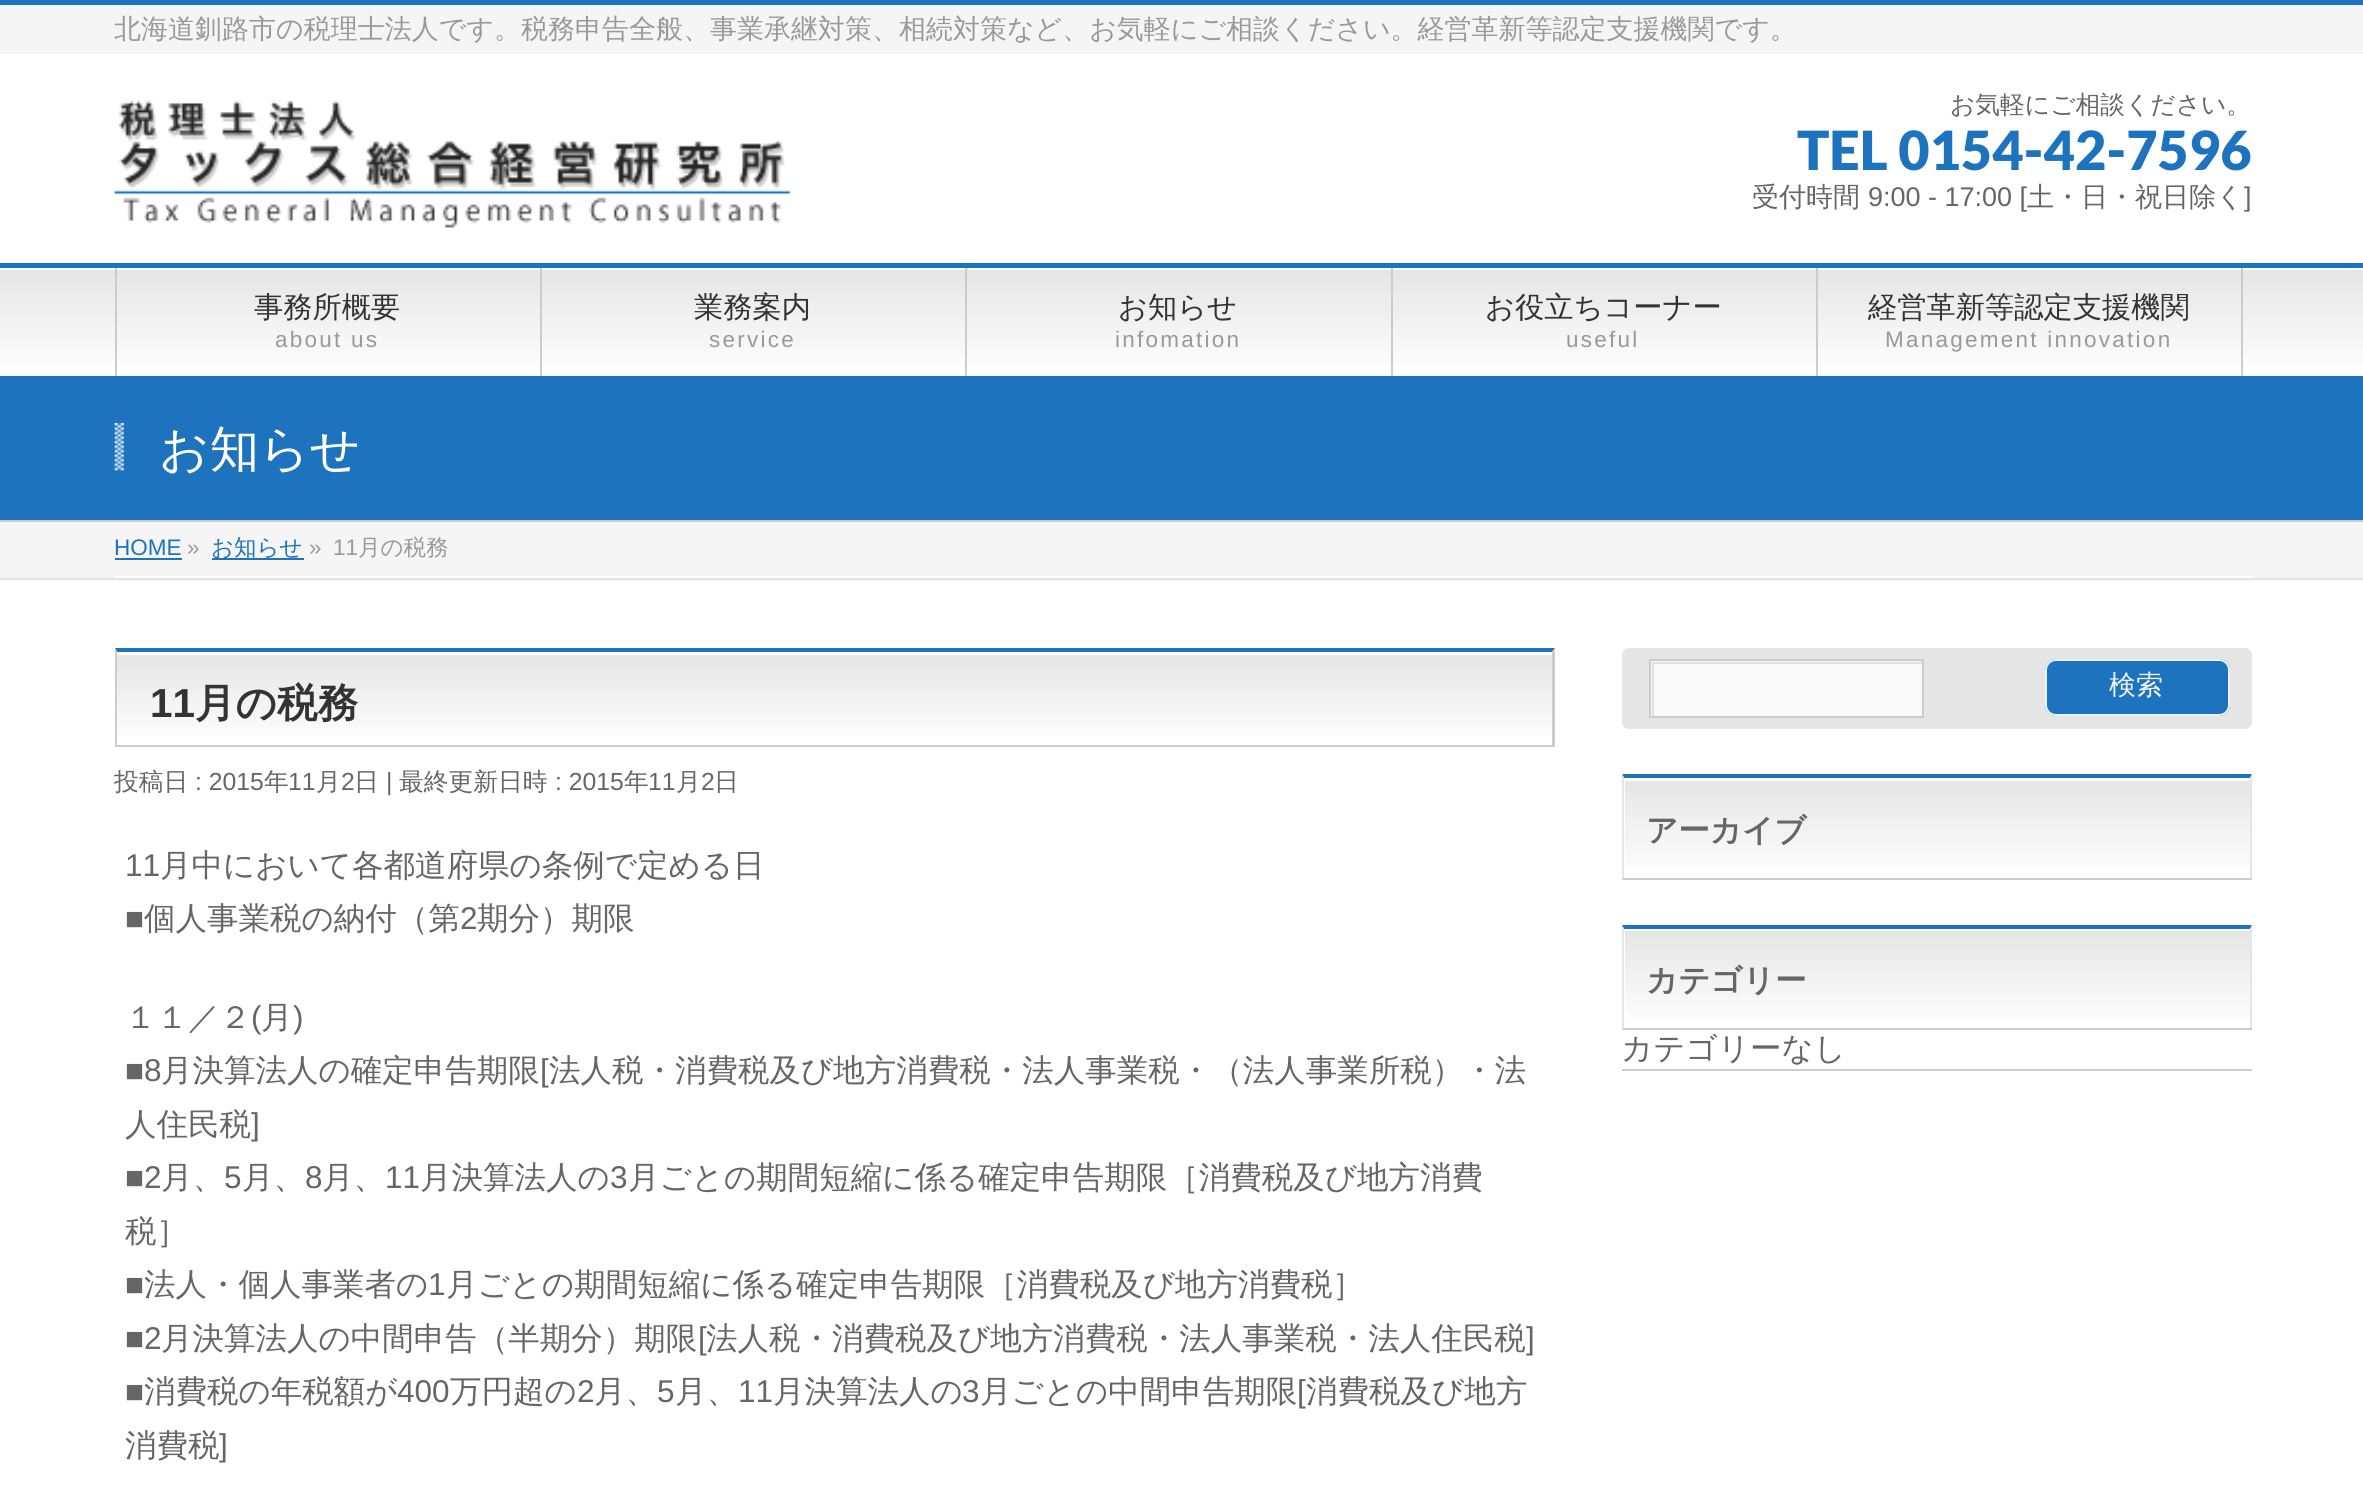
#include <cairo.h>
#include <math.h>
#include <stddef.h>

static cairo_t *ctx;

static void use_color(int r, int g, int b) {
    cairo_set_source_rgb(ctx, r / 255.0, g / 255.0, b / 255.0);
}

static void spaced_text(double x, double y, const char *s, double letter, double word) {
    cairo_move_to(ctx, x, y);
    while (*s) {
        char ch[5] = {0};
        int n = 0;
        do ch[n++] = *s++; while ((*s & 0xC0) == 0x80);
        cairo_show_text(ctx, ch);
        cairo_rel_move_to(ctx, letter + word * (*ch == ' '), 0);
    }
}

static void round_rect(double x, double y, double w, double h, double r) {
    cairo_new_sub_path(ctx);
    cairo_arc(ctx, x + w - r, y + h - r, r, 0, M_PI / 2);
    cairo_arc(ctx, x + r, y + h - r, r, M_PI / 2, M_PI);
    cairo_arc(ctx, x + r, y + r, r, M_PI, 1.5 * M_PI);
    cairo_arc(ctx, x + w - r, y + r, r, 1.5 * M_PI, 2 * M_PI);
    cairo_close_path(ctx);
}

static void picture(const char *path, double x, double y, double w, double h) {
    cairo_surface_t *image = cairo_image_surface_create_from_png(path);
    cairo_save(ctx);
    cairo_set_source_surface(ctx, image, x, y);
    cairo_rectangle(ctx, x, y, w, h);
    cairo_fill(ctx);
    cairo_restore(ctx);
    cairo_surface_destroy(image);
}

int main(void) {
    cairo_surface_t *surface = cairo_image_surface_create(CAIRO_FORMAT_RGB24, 2363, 1488);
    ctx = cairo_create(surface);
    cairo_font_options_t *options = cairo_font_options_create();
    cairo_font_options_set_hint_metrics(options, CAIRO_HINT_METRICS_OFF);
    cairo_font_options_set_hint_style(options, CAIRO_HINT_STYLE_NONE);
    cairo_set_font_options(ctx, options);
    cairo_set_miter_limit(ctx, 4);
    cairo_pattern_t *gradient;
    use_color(255, 255, 255);
    cairo_paint(ctx);
    use_color(245, 245, 245);
    cairo_rectangle(ctx, 0, 5, 2363, 49);
    cairo_fill(ctx);
    use_color(30, 115, 190);
    cairo_rectangle(ctx, 0, 0, 2363, 5);
    cairo_fill(ctx);
    cairo_select_font_face(ctx, "WenQuanYi Zen Hei Medium", CAIRO_FONT_SLANT_NORMAL, CAIRO_FONT_WEIGHT_NORMAL);
    cairo_set_font_size(ctx, 27);
    use_color(153, 153, 153);
    cairo_move_to(ctx, 114, 38);
    cairo_show_text(ctx, "北海道釧路市の税理士法人です。税務申告全般、事業承継対策、相続対策など、お気軽にご相談ください。経営革新等認定支援機関です。");
    picture("img1.png", 114, 100, 676, 128);
    cairo_set_font_size(ctx, 24.75);
    use_color(102, 102, 102);
    cairo_move_to(ctx, 1950, 113);
    cairo_show_text(ctx, "お気軽にご相談ください。");
    cairo_select_font_face(ctx, "Lato Black", CAIRO_FONT_SLANT_NORMAL, CAIRO_FONT_WEIGHT_NORMAL);
    cairo_set_font_size(ctx, 54);
    use_color(30, 115, 190);
    cairo_move_to(ctx, 1797, 170);
    cairo_show_text(ctx, "TEL 0154-42-7596");
    cairo_select_font_face(ctx, "WenQuanYi Zen Hei Medium", CAIRO_FONT_SLANT_NORMAL, CAIRO_FONT_WEIGHT_NORMAL);
    cairo_set_font_size(ctx, 27);
    use_color(102, 102, 102);
    cairo_move_to(ctx, 1752, 206);
    cairo_show_text(ctx, "受付時間");
    cairo_select_font_face(ctx, "Liberation Sans", CAIRO_FONT_SLANT_NORMAL, CAIRO_FONT_WEIGHT_NORMAL);
    cairo_move_to(ctx, 1868, 206);
    cairo_show_text(ctx, "9:00 - 17:00 [");
    cairo_select_font_face(ctx, "WenQuanYi Zen Hei Medium", CAIRO_FONT_SLANT_NORMAL, CAIRO_FONT_WEIGHT_NORMAL);
    cairo_move_to(ctx, 2027, 206);
    cairo_show_text(ctx, "土・日・祝日除く");
    cairo_select_font_face(ctx, "Liberation Sans", CAIRO_FONT_SLANT_NORMAL, CAIRO_FONT_WEIGHT_NORMAL);
    cairo_move_to(ctx, 2244, 206);
    cairo_show_text(ctx, "]");
    gradient = cairo_pattern_create_linear(1182, 268, 1182, 376);
    cairo_pattern_add_color_stop_rgba(gradient, 0, 0.898, 0.898, 0.898, 1);
    cairo_pattern_add_color_stop_rgba(gradient, 1, 1, 1, 1, 1);
    cairo_set_source(ctx, gradient);
    cairo_pattern_destroy(gradient);
    cairo_rectangle(ctx, 0, 270, 2363, 96);
    cairo_fill(ctx);
    use_color(30, 115, 190);
    cairo_rectangle(ctx, 0, 263, 2363, 5);
    cairo_fill(ctx);
    use_color(204, 204, 204);
    cairo_rectangle(ctx, 115, 268, 2, 108);
    cairo_fill(ctx);
    cairo_rectangle(ctx, 540, 268, 2, 108);
    cairo_fill(ctx);
    cairo_select_font_face(ctx, "WenQuanYi Zen Hei Medium", CAIRO_FONT_SLANT_NORMAL, CAIRO_FONT_WEIGHT_NORMAL);
    cairo_set_font_size(ctx, 29.25);
    use_color(51, 51, 51);
    cairo_move_to(ctx, 254, 317);
    cairo_show_text(ctx, "事務所概要");
    cairo_select_font_face(ctx, "Liberation Sans", CAIRO_FONT_SLANT_NORMAL, CAIRO_FONT_WEIGHT_NORMAL);
    cairo_set_font_size(ctx, 22.5);
    use_color(153, 153, 153);
    spaced_text(275, 347, "about us", 2.25, 0);
    gradient = cairo_pattern_create_linear(542, 268, 542, 376);
    cairo_pattern_add_color_stop_rgba(gradient, 0, 0.898, 0.898, 0.898, 1);
    cairo_pattern_add_color_stop_rgba(gradient, 1, 1, 1, 1, 1);
    cairo_set_source(ctx, gradient);
    cairo_pattern_destroy(gradient);
    cairo_rectangle(ctx, 542, 268, 426, 2);
    cairo_fill(ctx);
    use_color(255, 255, 255);
    cairo_rectangle(ctx, 542, 268, 423, 2);
    cairo_fill(ctx);
    use_color(204, 204, 204);
    cairo_rectangle(ctx, 965, 268, 2, 108);
    cairo_fill(ctx);
    cairo_select_font_face(ctx, "WenQuanYi Zen Hei Medium", CAIRO_FONT_SLANT_NORMAL, CAIRO_FONT_WEIGHT_NORMAL);
    cairo_set_font_size(ctx, 29.25);
    use_color(51, 51, 51);
    cairo_move_to(ctx, 694, 317);
    cairo_show_text(ctx, "業務案内");
    cairo_select_font_face(ctx, "Liberation Sans", CAIRO_FONT_SLANT_NORMAL, CAIRO_FONT_WEIGHT_NORMAL);
    cairo_set_font_size(ctx, 22.5);
    use_color(153, 153, 153);
    spaced_text(709, 347, "service", 2.25, 0);
    use_color(204, 204, 204);
    cairo_rectangle(ctx, 1391, 268, 2, 108);
    cairo_fill(ctx);
    cairo_select_font_face(ctx, "WenQuanYi Zen Hei Medium", CAIRO_FONT_SLANT_NORMAL, CAIRO_FONT_WEIGHT_NORMAL);
    cairo_set_font_size(ctx, 29.25);
    use_color(51, 51, 51);
    cairo_move_to(ctx, 1118, 317);
    cairo_show_text(ctx, "お知らせ");
    cairo_select_font_face(ctx, "Liberation Sans", CAIRO_FONT_SLANT_NORMAL, CAIRO_FONT_WEIGHT_NORMAL);
    cairo_set_font_size(ctx, 22.5);
    use_color(153, 153, 153);
    spaced_text(1115, 347, "infomation", 2.25, 0);
    use_color(204, 204, 204);
    cairo_rectangle(ctx, 1816, 268, 2, 108);
    cairo_fill(ctx);
    cairo_select_font_face(ctx, "WenQuanYi Zen Hei Medium", CAIRO_FONT_SLANT_NORMAL, CAIRO_FONT_WEIGHT_NORMAL);
    cairo_set_font_size(ctx, 29.25);
    use_color(51, 51, 51);
    cairo_move_to(ctx, 1485, 317);
    cairo_show_text(ctx, "お役立ちコーナー");
    cairo_select_font_face(ctx, "Liberation Sans", CAIRO_FONT_SLANT_NORMAL, CAIRO_FONT_WEIGHT_NORMAL);
    cairo_set_font_size(ctx, 22.5);
    use_color(153, 153, 153);
    spaced_text(1566, 347, "useful", 2.25, 0);
    use_color(204, 204, 204);
    cairo_rectangle(ctx, 2241, 268, 2, 108);
    cairo_fill(ctx);
    cairo_select_font_face(ctx, "WenQuanYi Zen Hei Medium", CAIRO_FONT_SLANT_NORMAL, CAIRO_FONT_WEIGHT_NORMAL);
    cairo_set_font_size(ctx, 29.25);
    use_color(51, 51, 51);
    cairo_move_to(ctx, 1868, 317);
    cairo_show_text(ctx, "経営革新等認定支援機関");
    cairo_select_font_face(ctx, "Liberation Sans", CAIRO_FONT_SLANT_NORMAL, CAIRO_FONT_WEIGHT_NORMAL);
    cairo_set_font_size(ctx, 22.5);
    use_color(153, 153, 153);
    spaced_text(1885, 347, "Management innovation", 2.25, 0);
    use_color(30, 115, 190);
    cairo_rectangle(ctx, 0, 376, 2363, 144);
    cairo_fill(ctx);
    use_color(204, 204, 204);
    cairo_rectangle(ctx, 0, 520, 2363, 2);
    cairo_fill(ctx);
    picture("img2.png", 114, 423, 10, 48);
    cairo_select_font_face(ctx, "WenQuanYi Zen Hei Medium", CAIRO_FONT_SLANT_NORMAL, CAIRO_FONT_WEIGHT_NORMAL);
    cairo_set_font_size(ctx, 49.5);
    use_color(255, 255, 255);
    cairo_move_to(ctx, 159, 466);
    cairo_show_text(ctx, "お知らせ");
    use_color(245, 245, 245);
    cairo_rectangle(ctx, 0, 522, 2363, 59);
    cairo_fill(ctx);
    use_color(229, 229, 229);
    cairo_rectangle(ctx, 0, 578, 2363, 2);
    cairo_fill(ctx);
    use_color(255, 255, 255);
    cairo_rectangle(ctx, 115, 576, 2137, 2);
    cairo_fill(ctx);
    cairo_select_font_face(ctx, "Liberation Sans", CAIRO_FONT_SLANT_NORMAL, CAIRO_FONT_WEIGHT_NORMAL);
    cairo_set_font_size(ctx, 22.5);
    use_color(30, 115, 190);
    cairo_move_to(ctx, 114, 555);
    cairo_show_text(ctx, "HOME");
    cairo_rectangle(ctx, 115, 558, 67, 2);
    cairo_fill(ctx);
    use_color(153, 153, 153);
    cairo_move_to(ctx, 187, 555);
    cairo_show_text(ctx, "»");
    use_color(30, 115, 190);
    cairo_rectangle(ctx, 212, 558, 92, 2);
    cairo_fill(ctx);
    cairo_select_font_face(ctx, "WenQuanYi Zen Hei Medium", CAIRO_FONT_SLANT_NORMAL, CAIRO_FONT_WEIGHT_NORMAL);
    cairo_move_to(ctx, 211, 555);
    cairo_show_text(ctx, "お知らせ");
    cairo_select_font_face(ctx, "Liberation Sans", CAIRO_FONT_SLANT_NORMAL, CAIRO_FONT_WEIGHT_NORMAL);
    use_color(153, 153, 153);
    cairo_move_to(ctx, 309, 555);
    cairo_show_text(ctx, "»");
    cairo_move_to(ctx, 333, 555);
    cairo_show_text(ctx, "11");
    cairo_select_font_face(ctx, "WenQuanYi Zen Hei Medium", CAIRO_FONT_SLANT_NORMAL, CAIRO_FONT_WEIGHT_NORMAL);
    cairo_move_to(ctx, 358, 555);
    cairo_show_text(ctx, "月の税務");
    gradient = cairo_pattern_create_linear(117, 653, 117, 745);
    cairo_pattern_add_color_stop_rgba(gradient, 0, 0.898, 0.898, 0.898, 1);
    cairo_pattern_add_color_stop_rgba(gradient, 1, 1, 1, 1, 1);
    cairo_set_source(ctx, gradient);
    cairo_pattern_destroy(gradient);
    cairo_rectangle(ctx, 117, 655, 1435, 81);
    cairo_fill(ctx);
    use_color(30, 115, 190);
    cairo_new_path(ctx);
    cairo_move_to(ctx, 115, 648);
    cairo_line_to(ctx, 1555, 648);
    cairo_line_to(ctx, 1552, 652);
    cairo_line_to(ctx, 117, 652);
    cairo_close_path(ctx);
    cairo_fill(ctx);
    use_color(204, 204, 204);
    cairo_new_path(ctx);
    cairo_move_to(ctx, 1555, 648);
    cairo_line_to(ctx, 1555, 747);
    cairo_line_to(ctx, 1552, 745);
    cairo_line_to(ctx, 1552, 652);
    cairo_close_path(ctx);
    cairo_fill(ctx);
    cairo_rectangle(ctx, 115, 745, 1440, 2);
    cairo_fill(ctx);
    cairo_new_path(ctx);
    cairo_move_to(ctx, 115, 747);
    cairo_line_to(ctx, 115, 648);
    cairo_line_to(ctx, 117, 652);
    cairo_line_to(ctx, 117, 745);
    cairo_close_path(ctx);
    cairo_fill(ctx);
    cairo_select_font_face(ctx, "Liberation Sans", CAIRO_FONT_SLANT_NORMAL, CAIRO_FONT_WEIGHT_BOLD);
    cairo_set_font_size(ctx, 40.5);
    use_color(51, 51, 51);
    cairo_move_to(ctx, 150, 717);
    cairo_show_text(ctx, "11");
    cairo_select_font_face(ctx, "WenQuanYi Zen Hei", CAIRO_FONT_SLANT_NORMAL, CAIRO_FONT_WEIGHT_BOLD);
    cairo_move_to(ctx, 195, 717);
    cairo_show_text(ctx, "月の税務");
    cairo_select_font_face(ctx, "WenQuanYi Zen Hei Medium", CAIRO_FONT_SLANT_NORMAL, CAIRO_FONT_WEIGHT_NORMAL);
    cairo_set_font_size(ctx, 24.75);
    use_color(102, 102, 102);
    cairo_move_to(ctx, 114, 790);
    cairo_show_text(ctx, "投稿日");
    cairo_select_font_face(ctx, "Liberation Sans", CAIRO_FONT_SLANT_NORMAL, CAIRO_FONT_WEIGHT_NORMAL);
    cairo_move_to(ctx, 195, 790);
    cairo_show_text(ctx, ": 2015");
    cairo_select_font_face(ctx, "WenQuanYi Zen Hei Medium", CAIRO_FONT_SLANT_NORMAL, CAIRO_FONT_WEIGHT_NORMAL);
    cairo_move_to(ctx, 264, 790);
    cairo_show_text(ctx, "年");
    cairo_select_font_face(ctx, "Liberation Sans", CAIRO_FONT_SLANT_NORMAL, CAIRO_FONT_WEIGHT_NORMAL);
    cairo_move_to(ctx, 288, 790);
    cairo_show_text(ctx, "11");
    cairo_select_font_face(ctx, "WenQuanYi Zen Hei Medium", CAIRO_FONT_SLANT_NORMAL, CAIRO_FONT_WEIGHT_NORMAL);
    cairo_move_to(ctx, 316, 790);
    cairo_show_text(ctx, "月");
    cairo_select_font_face(ctx, "Liberation Sans", CAIRO_FONT_SLANT_NORMAL, CAIRO_FONT_WEIGHT_NORMAL);
    cairo_move_to(ctx, 341, 790);
    cairo_show_text(ctx, "2");
    cairo_select_font_face(ctx, "WenQuanYi Zen Hei Medium", CAIRO_FONT_SLANT_NORMAL, CAIRO_FONT_WEIGHT_NORMAL);
    cairo_move_to(ctx, 354, 790);
    cairo_show_text(ctx, "日");
    cairo_select_font_face(ctx, "Liberation Sans", CAIRO_FONT_SLANT_NORMAL, CAIRO_FONT_WEIGHT_NORMAL);
    cairo_move_to(ctx, 386, 790);
    cairo_show_text(ctx, "|");
    cairo_select_font_face(ctx, "WenQuanYi Zen Hei Medium", CAIRO_FONT_SLANT_NORMAL, CAIRO_FONT_WEIGHT_NORMAL);
    cairo_move_to(ctx, 399, 790);
    cairo_show_text(ctx, "最終更新日時");
    cairo_select_font_face(ctx, "Liberation Sans", CAIRO_FONT_SLANT_NORMAL, CAIRO_FONT_WEIGHT_NORMAL);
    cairo_move_to(ctx, 555, 790);
    cairo_show_text(ctx, ": 2015");
    cairo_select_font_face(ctx, "WenQuanYi Zen Hei Medium", CAIRO_FONT_SLANT_NORMAL, CAIRO_FONT_WEIGHT_NORMAL);
    cairo_move_to(ctx, 624, 790);
    cairo_show_text(ctx, "年");
    cairo_select_font_face(ctx, "Liberation Sans", CAIRO_FONT_SLANT_NORMAL, CAIRO_FONT_WEIGHT_NORMAL);
    cairo_move_to(ctx, 648, 790);
    cairo_show_text(ctx, "11");
    cairo_select_font_face(ctx, "WenQuanYi Zen Hei Medium", CAIRO_FONT_SLANT_NORMAL, CAIRO_FONT_WEIGHT_NORMAL);
    cairo_move_to(ctx, 676, 790);
    cairo_show_text(ctx, "月");
    cairo_select_font_face(ctx, "Liberation Sans", CAIRO_FONT_SLANT_NORMAL, CAIRO_FONT_WEIGHT_NORMAL);
    cairo_move_to(ctx, 701, 790);
    cairo_show_text(ctx, "2");
    cairo_select_font_face(ctx, "WenQuanYi Zen Hei Medium", CAIRO_FONT_SLANT_NORMAL, CAIRO_FONT_WEIGHT_NORMAL);
    cairo_move_to(ctx, 714, 790);
    cairo_show_text(ctx, "日");
    cairo_select_font_face(ctx, "Liberation Sans", CAIRO_FONT_SLANT_NORMAL, CAIRO_FONT_WEIGHT_NORMAL);
    cairo_set_font_size(ctx, 31.5);
    cairo_move_to(ctx, 125, 876);
    cairo_show_text(ctx, "11");
    cairo_select_font_face(ctx, "WenQuanYi Zen Hei Medium", CAIRO_FONT_SLANT_NORMAL, CAIRO_FONT_WEIGHT_NORMAL);
    cairo_move_to(ctx, 160, 876);
    cairo_show_text(ctx, "月中において各都道府県の条例で定める日");
    cairo_select_font_face(ctx, "Liberation Sans", CAIRO_FONT_SLANT_NORMAL, CAIRO_FONT_WEIGHT_NORMAL);
    cairo_move_to(ctx, 125, 929);
    cairo_show_text(ctx, "■");
    cairo_select_font_face(ctx, "WenQuanYi Zen Hei Medium", CAIRO_FONT_SLANT_NORMAL, CAIRO_FONT_WEIGHT_NORMAL);
    cairo_move_to(ctx, 144, 929);
    cairo_show_text(ctx, "個人事業税の納付（第");
    cairo_select_font_face(ctx, "Liberation Sans", CAIRO_FONT_SLANT_NORMAL, CAIRO_FONT_WEIGHT_NORMAL);
    cairo_move_to(ctx, 460, 929);
    cairo_show_text(ctx, "2");
    cairo_select_font_face(ctx, "WenQuanYi Zen Hei Medium", CAIRO_FONT_SLANT_NORMAL, CAIRO_FONT_WEIGHT_NORMAL);
    cairo_move_to(ctx, 477, 929);
    cairo_show_text(ctx, "期分）期限");
    cairo_move_to(ctx, 125, 1028);
    cairo_show_text(ctx, "１１／２");
    cairo_select_font_face(ctx, "Liberation Sans", CAIRO_FONT_SLANT_NORMAL, CAIRO_FONT_WEIGHT_NORMAL);
    cairo_move_to(ctx, 251, 1028);
    cairo_show_text(ctx, "(");
    cairo_select_font_face(ctx, "WenQuanYi Zen Hei Medium", CAIRO_FONT_SLANT_NORMAL, CAIRO_FONT_WEIGHT_NORMAL);
    cairo_move_to(ctx, 261, 1028);
    cairo_show_text(ctx, "月");
    cairo_select_font_face(ctx, "Liberation Sans", CAIRO_FONT_SLANT_NORMAL, CAIRO_FONT_WEIGHT_NORMAL);
    cairo_move_to(ctx, 293, 1028);
    cairo_show_text(ctx, ")");
    cairo_move_to(ctx, 125, 1081);
    cairo_show_text(ctx, "■8");
    cairo_select_font_face(ctx, "WenQuanYi Zen Hei Medium", CAIRO_FONT_SLANT_NORMAL, CAIRO_FONT_WEIGHT_NORMAL);
    cairo_move_to(ctx, 161, 1081);
    cairo_show_text(ctx, "月決算法人の確定申告期限");
    cairo_select_font_face(ctx, "Liberation Sans", CAIRO_FONT_SLANT_NORMAL, CAIRO_FONT_WEIGHT_NORMAL);
    cairo_move_to(ctx, 540, 1081);
    cairo_show_text(ctx, "[");
    cairo_select_font_face(ctx, "WenQuanYi Zen Hei Medium", CAIRO_FONT_SLANT_NORMAL, CAIRO_FONT_WEIGHT_NORMAL);
    cairo_move_to(ctx, 549, 1081);
    cairo_show_text(ctx, "法人税・消費税及び地方消費税・法人事業税・（法人事業所税）・法");
    cairo_move_to(ctx, 125, 1135);
    cairo_show_text(ctx, "人住民税");
    cairo_select_font_face(ctx, "Liberation Sans", CAIRO_FONT_SLANT_NORMAL, CAIRO_FONT_WEIGHT_NORMAL);
    cairo_move_to(ctx, 251, 1135);
    cairo_show_text(ctx, "]");
    cairo_move_to(ctx, 125, 1188);
    cairo_show_text(ctx, "■2");
    cairo_select_font_face(ctx, "WenQuanYi Zen Hei Medium", CAIRO_FONT_SLANT_NORMAL, CAIRO_FONT_WEIGHT_NORMAL);
    cairo_move_to(ctx, 161, 1188);
    cairo_show_text(ctx, "月、");
    cairo_select_font_face(ctx, "Liberation Sans", CAIRO_FONT_SLANT_NORMAL, CAIRO_FONT_WEIGHT_NORMAL);
    cairo_move_to(ctx, 224, 1188);
    cairo_show_text(ctx, "5");
    cairo_select_font_face(ctx, "WenQuanYi Zen Hei Medium", CAIRO_FONT_SLANT_NORMAL, CAIRO_FONT_WEIGHT_NORMAL);
    cairo_move_to(ctx, 242, 1188);
    cairo_show_text(ctx, "月、");
    cairo_select_font_face(ctx, "Liberation Sans", CAIRO_FONT_SLANT_NORMAL, CAIRO_FONT_WEIGHT_NORMAL);
    cairo_move_to(ctx, 305, 1188);
    cairo_show_text(ctx, "8");
    cairo_select_font_face(ctx, "WenQuanYi Zen Hei Medium", CAIRO_FONT_SLANT_NORMAL, CAIRO_FONT_WEIGHT_NORMAL);
    cairo_move_to(ctx, 322, 1188);
    cairo_show_text(ctx, "月、");
    cairo_select_font_face(ctx, "Liberation Sans", CAIRO_FONT_SLANT_NORMAL, CAIRO_FONT_WEIGHT_NORMAL);
    cairo_move_to(ctx, 385, 1188);
    cairo_show_text(ctx, "11");
    cairo_select_font_face(ctx, "WenQuanYi Zen Hei Medium", CAIRO_FONT_SLANT_NORMAL, CAIRO_FONT_WEIGHT_NORMAL);
    cairo_move_to(ctx, 420, 1188);
    cairo_show_text(ctx, "月決算法人の");
    cairo_select_font_face(ctx, "Liberation Sans", CAIRO_FONT_SLANT_NORMAL, CAIRO_FONT_WEIGHT_NORMAL);
    cairo_move_to(ctx, 610, 1188);
    cairo_show_text(ctx, "3");
    cairo_select_font_face(ctx, "WenQuanYi Zen Hei Medium", CAIRO_FONT_SLANT_NORMAL, CAIRO_FONT_WEIGHT_NORMAL);
    cairo_move_to(ctx, 628, 1188);
    cairo_show_text(ctx, "月ごとの期間短縮に係る確定申告期限［消費税及び地方消費");
    cairo_move_to(ctx, 125, 1242);
    cairo_show_text(ctx, "税］");
    cairo_select_font_face(ctx, "Liberation Sans", CAIRO_FONT_SLANT_NORMAL, CAIRO_FONT_WEIGHT_NORMAL);
    cairo_move_to(ctx, 125, 1295);
    cairo_show_text(ctx, "■");
    cairo_select_font_face(ctx, "WenQuanYi Zen Hei Medium", CAIRO_FONT_SLANT_NORMAL, CAIRO_FONT_WEIGHT_NORMAL);
    cairo_move_to(ctx, 144, 1295);
    cairo_show_text(ctx, "法人・個人事業者の");
    cairo_select_font_face(ctx, "Liberation Sans", CAIRO_FONT_SLANT_NORMAL, CAIRO_FONT_WEIGHT_NORMAL);
    cairo_move_to(ctx, 428, 1295);
    cairo_show_text(ctx, "1");
    cairo_select_font_face(ctx, "WenQuanYi Zen Hei Medium", CAIRO_FONT_SLANT_NORMAL, CAIRO_FONT_WEIGHT_NORMAL);
    cairo_move_to(ctx, 446, 1295);
    cairo_show_text(ctx, "月ごとの期間短縮に係る確定申告期限［消費税及び地方消費税］");
    cairo_select_font_face(ctx, "Liberation Sans", CAIRO_FONT_SLANT_NORMAL, CAIRO_FONT_WEIGHT_NORMAL);
    cairo_move_to(ctx, 125, 1349);
    cairo_show_text(ctx, "■2");
    cairo_select_font_face(ctx, "WenQuanYi Zen Hei Medium", CAIRO_FONT_SLANT_NORMAL, CAIRO_FONT_WEIGHT_NORMAL);
    cairo_move_to(ctx, 161, 1349);
    cairo_show_text(ctx, "月決算法人の中間申告（半期分）期限");
    cairo_select_font_face(ctx, "Liberation Sans", CAIRO_FONT_SLANT_NORMAL, CAIRO_FONT_WEIGHT_NORMAL);
    cairo_move_to(ctx, 698, 1349);
    cairo_show_text(ctx, "[");
    cairo_select_font_face(ctx, "WenQuanYi Zen Hei Medium", CAIRO_FONT_SLANT_NORMAL, CAIRO_FONT_WEIGHT_NORMAL);
    cairo_move_to(ctx, 706, 1349);
    cairo_show_text(ctx, "法人税・消費税及び地方消費税・法人事業税・法人住民税");
    cairo_select_font_face(ctx, "Liberation Sans", CAIRO_FONT_SLANT_NORMAL, CAIRO_FONT_WEIGHT_NORMAL);
    cairo_move_to(ctx, 1526, 1349);
    cairo_show_text(ctx, "]");
    cairo_move_to(ctx, 125, 1402);
    cairo_show_text(ctx, "■");
    cairo_select_font_face(ctx, "WenQuanYi Zen Hei Medium", CAIRO_FONT_SLANT_NORMAL, CAIRO_FONT_WEIGHT_NORMAL);
    cairo_move_to(ctx, 144, 1402);
    cairo_show_text(ctx, "消費税の年税額が");
    cairo_select_font_face(ctx, "Liberation Sans", CAIRO_FONT_SLANT_NORMAL, CAIRO_FONT_WEIGHT_NORMAL);
    cairo_move_to(ctx, 397, 1402);
    cairo_show_text(ctx, "400");
    cairo_select_font_face(ctx, "WenQuanYi Zen Hei Medium", CAIRO_FONT_SLANT_NORMAL, CAIRO_FONT_WEIGHT_NORMAL);
    cairo_move_to(ctx, 450, 1402);
    cairo_show_text(ctx, "万円超の");
    cairo_select_font_face(ctx, "Liberation Sans", CAIRO_FONT_SLANT_NORMAL, CAIRO_FONT_WEIGHT_NORMAL);
    cairo_move_to(ctx, 577, 1402);
    cairo_show_text(ctx, "2");
    cairo_select_font_face(ctx, "WenQuanYi Zen Hei Medium", CAIRO_FONT_SLANT_NORMAL, CAIRO_FONT_WEIGHT_NORMAL);
    cairo_move_to(ctx, 594, 1402);
    cairo_show_text(ctx, "月、");
    cairo_select_font_face(ctx, "Liberation Sans", CAIRO_FONT_SLANT_NORMAL, CAIRO_FONT_WEIGHT_NORMAL);
    cairo_move_to(ctx, 657, 1402);
    cairo_show_text(ctx, "5");
    cairo_select_font_face(ctx, "WenQuanYi Zen Hei Medium", CAIRO_FONT_SLANT_NORMAL, CAIRO_FONT_WEIGHT_NORMAL);
    cairo_move_to(ctx, 675, 1402);
    cairo_show_text(ctx, "月、");
    cairo_select_font_face(ctx, "Liberation Sans", CAIRO_FONT_SLANT_NORMAL, CAIRO_FONT_WEIGHT_NORMAL);
    cairo_move_to(ctx, 738, 1402);
    cairo_show_text(ctx, "11");
    cairo_select_font_face(ctx, "WenQuanYi Zen Hei Medium", CAIRO_FONT_SLANT_NORMAL, CAIRO_FONT_WEIGHT_NORMAL);
    cairo_move_to(ctx, 773, 1402);
    cairo_show_text(ctx, "月決算法人の");
    cairo_select_font_face(ctx, "Liberation Sans", CAIRO_FONT_SLANT_NORMAL, CAIRO_FONT_WEIGHT_NORMAL);
    cairo_move_to(ctx, 962, 1402);
    cairo_show_text(ctx, "3");
    cairo_select_font_face(ctx, "WenQuanYi Zen Hei Medium", CAIRO_FONT_SLANT_NORMAL, CAIRO_FONT_WEIGHT_NORMAL);
    cairo_move_to(ctx, 980, 1402);
    cairo_show_text(ctx, "月ごとの中間申告期限");
    cairo_select_font_face(ctx, "Liberation Sans", CAIRO_FONT_SLANT_NORMAL, CAIRO_FONT_WEIGHT_NORMAL);
    cairo_move_to(ctx, 1297, 1402);
    cairo_show_text(ctx, "[");
    cairo_select_font_face(ctx, "WenQuanYi Zen Hei Medium", CAIRO_FONT_SLANT_NORMAL, CAIRO_FONT_WEIGHT_NORMAL);
    cairo_move_to(ctx, 1306, 1402);
    cairo_show_text(ctx, "消費税及び地方");
    cairo_move_to(ctx, 125, 1456);
    cairo_show_text(ctx, "消費税");
    cairo_select_font_face(ctx, "Liberation Sans", CAIRO_FONT_SLANT_NORMAL, CAIRO_FONT_WEIGHT_NORMAL);
    cairo_move_to(ctx, 219, 1456);
    cairo_show_text(ctx, "]");
    use_color(229, 229, 229);
    round_rect(1622, 648, 630, 81, 7);
    cairo_fill(ctx);
    use_color(249, 249, 249);
    cairo_rectangle(ctx, 1651, 661, 271, 55);
    cairo_fill(ctx);
    cairo_save(ctx);
    cairo_rectangle(ctx, 1652, 662, 270, 54);
    cairo_clip(ctx);
    use_color(224, 224, 224);
    cairo_set_fill_rule(ctx, CAIRO_FILL_RULE_EVEN_ODD);
    cairo_new_path(ctx);
    cairo_move_to(ctx, 1629, 648);
    cairo_line_to(ctx, 2144, 648);
    cairo_line_to(ctx, 2144, 729);
    cairo_line_to(ctx, 1629, 729);
    cairo_curve_to(ctx, 1625, 729, 1622, 726, 1622, 722);
    cairo_line_to(ctx, 1622, 655);
    cairo_curve_to(ctx, 1622, 651, 1625, 648, 1629, 648);
    cairo_close_path(ctx);
    cairo_move_to(ctx, 1654, 664);
    cairo_line_to(ctx, 1654, 718);
    cairo_line_to(ctx, 1924, 718);
    cairo_line_to(ctx, 1924, 664);
    cairo_close_path(ctx);
    cairo_fill(ctx);
    cairo_restore(ctx);
    cairo_rectangle(ctx, 1650, 660, 273, 57);
    use_color(204, 204, 204);
    cairo_stroke(ctx);
    use_color(30, 115, 190);
    round_rect(2045, 659, 185, 57, 11);
    cairo_fill(ctx);
    round_rect(2046, 660, 183, 55, 10);
    cairo_set_source_rgba(ctx, 1, 1, 1, 0.9);
    cairo_stroke(ctx);
    cairo_select_font_face(ctx, "WenQuanYi Zen Hei Medium", CAIRO_FONT_SLANT_NORMAL, CAIRO_FONT_WEIGHT_NORMAL);
    cairo_set_font_size(ctx, 27);
    use_color(245, 245, 245);
    cairo_move_to(ctx, 2109, 694);
    cairo_show_text(ctx, "検索");
    gradient = cairo_pattern_create_linear(1625, 779, 1625, 878);
    cairo_pattern_add_color_stop_rgba(gradient, 0, 0.898, 0.898, 0.898, 1);
    cairo_pattern_add_color_stop_rgba(gradient, 1, 1, 1, 1, 1);
    cairo_set_source(ctx, gradient);
    cairo_pattern_destroy(gradient);
    cairo_rectangle(ctx, 1625, 781, 625, 87);
    cairo_fill(ctx);
    use_color(30, 115, 190);
    cairo_new_path(ctx);
    cairo_move_to(ctx, 1622, 774);
    cairo_line_to(ctx, 2252, 774);
    cairo_line_to(ctx, 2250, 778);
    cairo_line_to(ctx, 1624, 778);
    cairo_close_path(ctx);
    cairo_fill(ctx);
    use_color(229, 229, 229);
    cairo_new_path(ctx);
    cairo_move_to(ctx, 2252, 774);
    cairo_line_to(ctx, 2252, 880);
    cairo_line_to(ctx, 2250, 878);
    cairo_line_to(ctx, 2250, 778);
    cairo_close_path(ctx);
    cairo_fill(ctx);
    use_color(204, 204, 204);
    cairo_rectangle(ctx, 1622, 878, 630, 2);
    cairo_fill(ctx);
    use_color(229, 229, 229);
    cairo_new_path(ctx);
    cairo_move_to(ctx, 1622, 880);
    cairo_line_to(ctx, 1622, 774);
    cairo_line_to(ctx, 1624, 778);
    cairo_line_to(ctx, 1624, 878);
    cairo_close_path(ctx);
    cairo_fill(ctx);
    cairo_select_font_face(ctx, "WenQuanYi Zen Hei", CAIRO_FONT_SLANT_NORMAL, CAIRO_FONT_WEIGHT_BOLD);
    cairo_set_font_size(ctx, 31.5);
    use_color(102, 102, 102);
    cairo_move_to(ctx, 1646, 841);
    cairo_show_text(ctx, "アーカイブ");
    gradient = cairo_pattern_create_linear(1625, 929, 1625, 1028);
    cairo_pattern_add_color_stop_rgba(gradient, 0, 0.898, 0.898, 0.898, 1);
    cairo_pattern_add_color_stop_rgba(gradient, 1, 1, 1, 1, 1);
    cairo_set_source(ctx, gradient);
    cairo_pattern_destroy(gradient);
    cairo_rectangle(ctx, 1625, 931, 625, 87);
    cairo_fill(ctx);
    use_color(30, 115, 190);
    cairo_new_path(ctx);
    cairo_move_to(ctx, 1622, 925);
    cairo_line_to(ctx, 2252, 925);
    cairo_line_to(ctx, 2250, 929);
    cairo_line_to(ctx, 1624, 929);
    cairo_close_path(ctx);
    cairo_fill(ctx);
    use_color(229, 229, 229);
    cairo_new_path(ctx);
    cairo_move_to(ctx, 2252, 925);
    cairo_line_to(ctx, 2252, 1030);
    cairo_line_to(ctx, 2250, 1028);
    cairo_line_to(ctx, 2250, 929);
    cairo_close_path(ctx);
    cairo_fill(ctx);
    use_color(204, 204, 204);
    cairo_rectangle(ctx, 1622, 1028, 630, 2);
    cairo_fill(ctx);
    use_color(229, 229, 229);
    cairo_new_path(ctx);
    cairo_move_to(ctx, 1622, 1030);
    cairo_line_to(ctx, 1622, 925);
    cairo_line_to(ctx, 1624, 929);
    cairo_line_to(ctx, 1624, 1028);
    cairo_close_path(ctx);
    cairo_fill(ctx);
    use_color(102, 102, 102);
    cairo_move_to(ctx, 1646, 991);
    cairo_show_text(ctx, "カテゴリー");
    use_color(204, 204, 204);
    cairo_rectangle(ctx, 1622, 1069, 630, 2);
    cairo_fill(ctx);
    cairo_select_font_face(ctx, "WenQuanYi Zen Hei Medium", CAIRO_FONT_SLANT_NORMAL, CAIRO_FONT_WEIGHT_NORMAL);
    use_color(102, 102, 102);
    cairo_move_to(ctx, 1621, 1059);
    cairo_show_text(ctx, "カテゴリーなし");
    cairo_surface_write_to_png(surface, "result.png");
    cairo_font_options_destroy(options);
    cairo_destroy(ctx);
    cairo_surface_destroy(surface);
    return 0;
}
